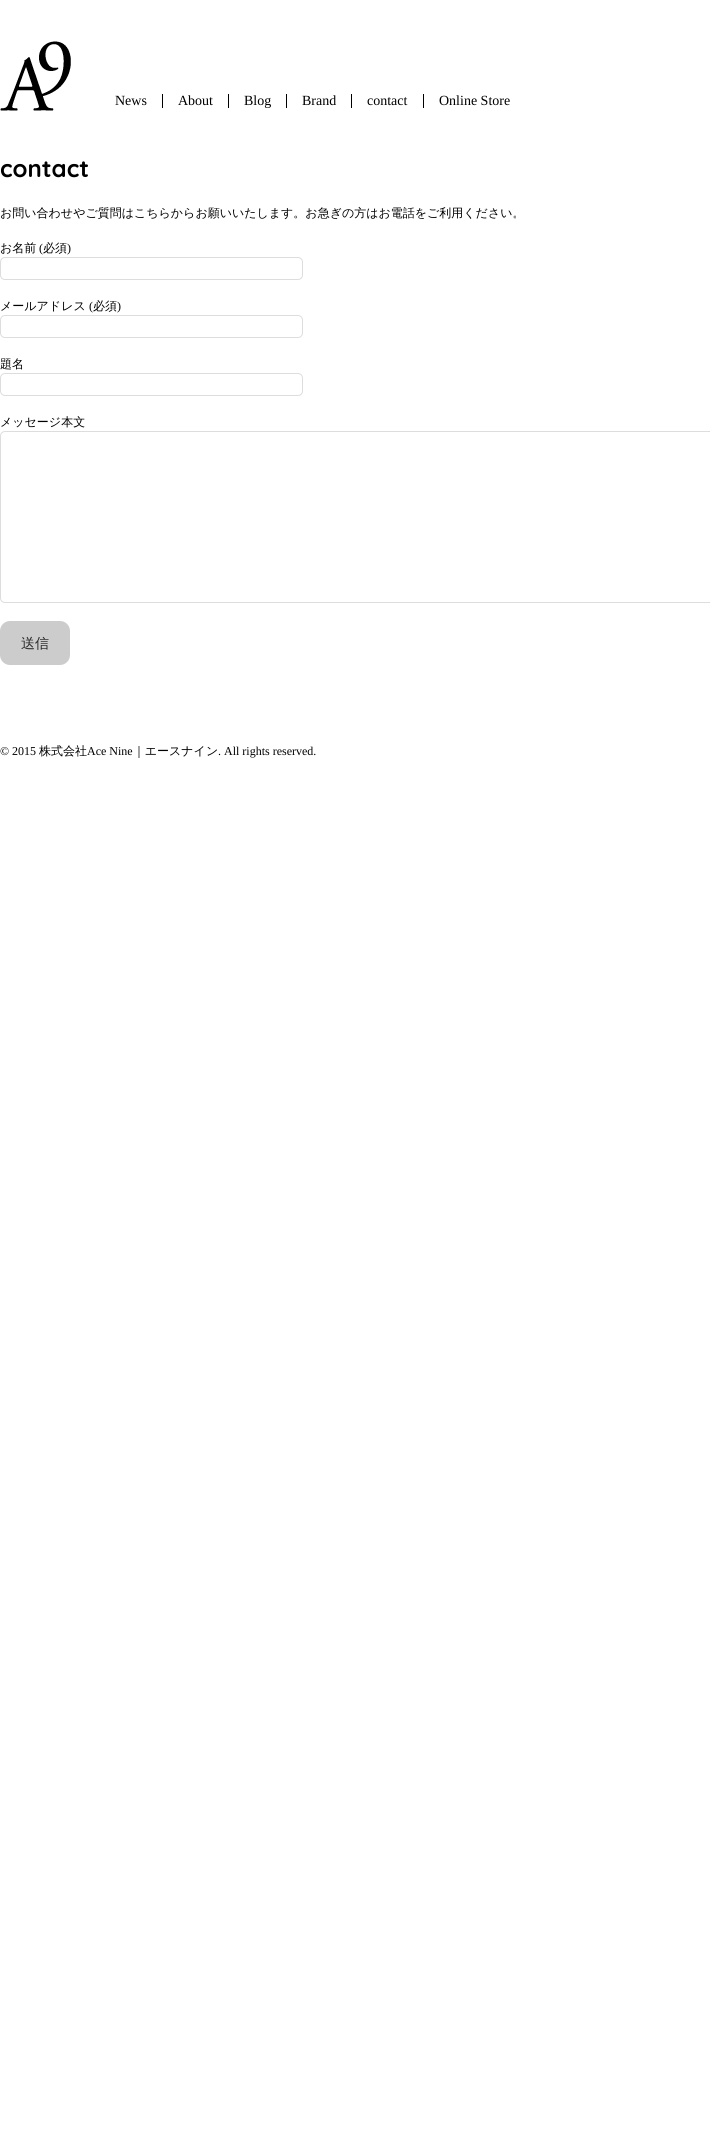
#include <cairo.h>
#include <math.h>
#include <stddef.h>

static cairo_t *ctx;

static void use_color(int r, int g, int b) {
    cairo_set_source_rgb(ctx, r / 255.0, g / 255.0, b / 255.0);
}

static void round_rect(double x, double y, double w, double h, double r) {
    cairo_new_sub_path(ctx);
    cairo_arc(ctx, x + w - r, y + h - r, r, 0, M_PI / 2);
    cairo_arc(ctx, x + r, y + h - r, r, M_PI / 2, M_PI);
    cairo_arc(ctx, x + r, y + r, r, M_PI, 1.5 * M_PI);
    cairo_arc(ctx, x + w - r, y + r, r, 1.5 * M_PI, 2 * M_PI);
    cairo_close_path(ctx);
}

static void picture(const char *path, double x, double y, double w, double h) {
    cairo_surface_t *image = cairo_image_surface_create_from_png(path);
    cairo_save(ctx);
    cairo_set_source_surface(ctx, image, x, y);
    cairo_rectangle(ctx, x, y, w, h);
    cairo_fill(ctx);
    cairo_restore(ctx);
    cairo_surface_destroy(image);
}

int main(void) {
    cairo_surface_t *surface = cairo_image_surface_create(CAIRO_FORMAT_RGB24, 710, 2134);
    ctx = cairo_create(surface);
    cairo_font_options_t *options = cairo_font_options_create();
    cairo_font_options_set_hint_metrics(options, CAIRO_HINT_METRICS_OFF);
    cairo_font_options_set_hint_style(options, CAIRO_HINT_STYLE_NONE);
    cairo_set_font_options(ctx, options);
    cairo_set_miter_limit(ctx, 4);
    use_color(255, 255, 255);
    cairo_paint(ctx);
    picture("img1.png", 0, 41, 71, 70);
    use_color(0, 0, 0);
    cairo_rectangle(ctx, 162, 94, 1, 14);
    cairo_fill(ctx);
    cairo_select_font_face(ctx, "Liberation Serif", CAIRO_FONT_SLANT_NORMAL, CAIRO_FONT_WEIGHT_NORMAL);
    cairo_set_font_size(ctx, 14);
    cairo_move_to(ctx, 115, 105);
    cairo_show_text(ctx, "News");
    cairo_rectangle(ctx, 228, 94, 1, 14);
    cairo_fill(ctx);
    cairo_move_to(ctx, 178, 105);
    cairo_show_text(ctx, "About");
    cairo_rectangle(ctx, 286, 94, 1, 14);
    cairo_fill(ctx);
    cairo_move_to(ctx, 244, 105);
    cairo_show_text(ctx, "Blog");
    cairo_rectangle(ctx, 351, 94, 1, 14);
    cairo_fill(ctx);
    cairo_move_to(ctx, 302, 105);
    cairo_show_text(ctx, "Brand");
    cairo_rectangle(ctx, 423, 94, 1, 14);
    cairo_fill(ctx);
    cairo_move_to(ctx, 367, 105);
    cairo_show_text(ctx, "contact");
    cairo_move_to(ctx, 439, 105);
    cairo_show_text(ctx, "Online Store");
    cairo_select_font_face(ctx, "Quicksand", CAIRO_FONT_SLANT_NORMAL, CAIRO_FONT_WEIGHT_BOLD);
    cairo_set_font_size(ctx, 24);
    cairo_move_to(ctx, 0, 177);
    cairo_show_text(ctx, "contact");
    cairo_select_font_face(ctx, "WenQuanYi Zen Hei Medium", CAIRO_FONT_SLANT_NORMAL, CAIRO_FONT_WEIGHT_NORMAL);
    cairo_set_font_size(ctx, 12);
    cairo_move_to(ctx, 0, 217);
    cairo_show_text(ctx, "お問い合わせやご質問はこちらからお願いいたします。お急ぎの方はお電話をご利用ください。");
    cairo_move_to(ctx, 0, 252);
    cairo_show_text(ctx, "お名前");
    cairo_select_font_face(ctx, "Liberation Serif", CAIRO_FONT_SLANT_NORMAL, CAIRO_FONT_WEIGHT_NORMAL);
    cairo_move_to(ctx, 39, 252);
    cairo_show_text(ctx, "(");
    cairo_select_font_face(ctx, "WenQuanYi Zen Hei Medium", CAIRO_FONT_SLANT_NORMAL, CAIRO_FONT_WEIGHT_NORMAL);
    cairo_move_to(ctx, 43, 252);
    cairo_show_text(ctx, "必須");
    cairo_select_font_face(ctx, "Liberation Serif", CAIRO_FONT_SLANT_NORMAL, CAIRO_FONT_WEIGHT_NORMAL);
    cairo_move_to(ctx, 67, 252);
    cairo_show_text(ctx, ")");
    round_rect(0.5, 257.5, 302, 22, 4.5);
    use_color(221, 221, 221);
    cairo_set_line_width(ctx, 1);
    cairo_stroke(ctx);
    cairo_select_font_face(ctx, "WenQuanYi Zen Hei Medium", CAIRO_FONT_SLANT_NORMAL, CAIRO_FONT_WEIGHT_NORMAL);
    use_color(0, 0, 0);
    cairo_move_to(ctx, 0, 310);
    cairo_show_text(ctx, "メールアドレス");
    cairo_select_font_face(ctx, "Liberation Serif", CAIRO_FONT_SLANT_NORMAL, CAIRO_FONT_WEIGHT_NORMAL);
    cairo_move_to(ctx, 89, 310);
    cairo_show_text(ctx, "(");
    cairo_select_font_face(ctx, "WenQuanYi Zen Hei Medium", CAIRO_FONT_SLANT_NORMAL, CAIRO_FONT_WEIGHT_NORMAL);
    cairo_move_to(ctx, 93, 310);
    cairo_show_text(ctx, "必須");
    cairo_select_font_face(ctx, "Liberation Serif", CAIRO_FONT_SLANT_NORMAL, CAIRO_FONT_WEIGHT_NORMAL);
    cairo_move_to(ctx, 117, 310);
    cairo_show_text(ctx, ")");
    round_rect(0.5, 315.5, 302, 22, 4.5);
    use_color(221, 221, 221);
    cairo_stroke(ctx);
    cairo_select_font_face(ctx, "WenQuanYi Zen Hei Medium", CAIRO_FONT_SLANT_NORMAL, CAIRO_FONT_WEIGHT_NORMAL);
    use_color(0, 0, 0);
    cairo_move_to(ctx, 0, 368);
    cairo_show_text(ctx, "題名");
    round_rect(0.5, 373.5, 302, 22, 4.5);
    use_color(221, 221, 221);
    cairo_stroke(ctx);
    use_color(0, 0, 0);
    cairo_move_to(ctx, 0, 426);
    cairo_show_text(ctx, "メッセージ本文");
    round_rect(0.5, 431.5, 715, 171, 4.5);
    use_color(221, 221, 221);
    cairo_stroke(ctx);
    use_color(204, 204, 204);
    round_rect(0, 621, 70, 44, 10);
    cairo_fill(ctx);
    cairo_set_font_size(ctx, 14);
    use_color(41, 41, 41);
    cairo_move_to(ctx, 21, 648);
    cairo_show_text(ctx, "送信");
    cairo_select_font_face(ctx, "Liberation Serif", CAIRO_FONT_SLANT_NORMAL, CAIRO_FONT_WEIGHT_NORMAL);
    cairo_set_font_size(ctx, 12);
    use_color(0, 0, 0);
    cairo_move_to(ctx, 0, 755);
    cairo_show_text(ctx, "© 2015");
    cairo_select_font_face(ctx, "WenQuanYi Zen Hei Medium", CAIRO_FONT_SLANT_NORMAL, CAIRO_FONT_WEIGHT_NORMAL);
    cairo_move_to(ctx, 39, 755);
    cairo_show_text(ctx, "株式会社");
    cairo_select_font_face(ctx, "Liberation Serif", CAIRO_FONT_SLANT_NORMAL, CAIRO_FONT_WEIGHT_NORMAL);
    cairo_move_to(ctx, 87, 755);
    cairo_show_text(ctx, "Ace Nine");
    cairo_select_font_face(ctx, "WenQuanYi Zen Hei Medium", CAIRO_FONT_SLANT_NORMAL, CAIRO_FONT_WEIGHT_NORMAL);
    cairo_move_to(ctx, 133, 755);
    cairo_show_text(ctx, "｜エースナイン");
    cairo_select_font_face(ctx, "Liberation Serif", CAIRO_FONT_SLANT_NORMAL, CAIRO_FONT_WEIGHT_NORMAL);
    cairo_move_to(ctx, 218, 755);
    cairo_show_text(ctx, ". All rights reserved.");
    cairo_surface_write_to_png(surface, "result.png");
    cairo_font_options_destroy(options);
    cairo_destroy(ctx);
    cairo_surface_destroy(surface);
    return 0;
}
